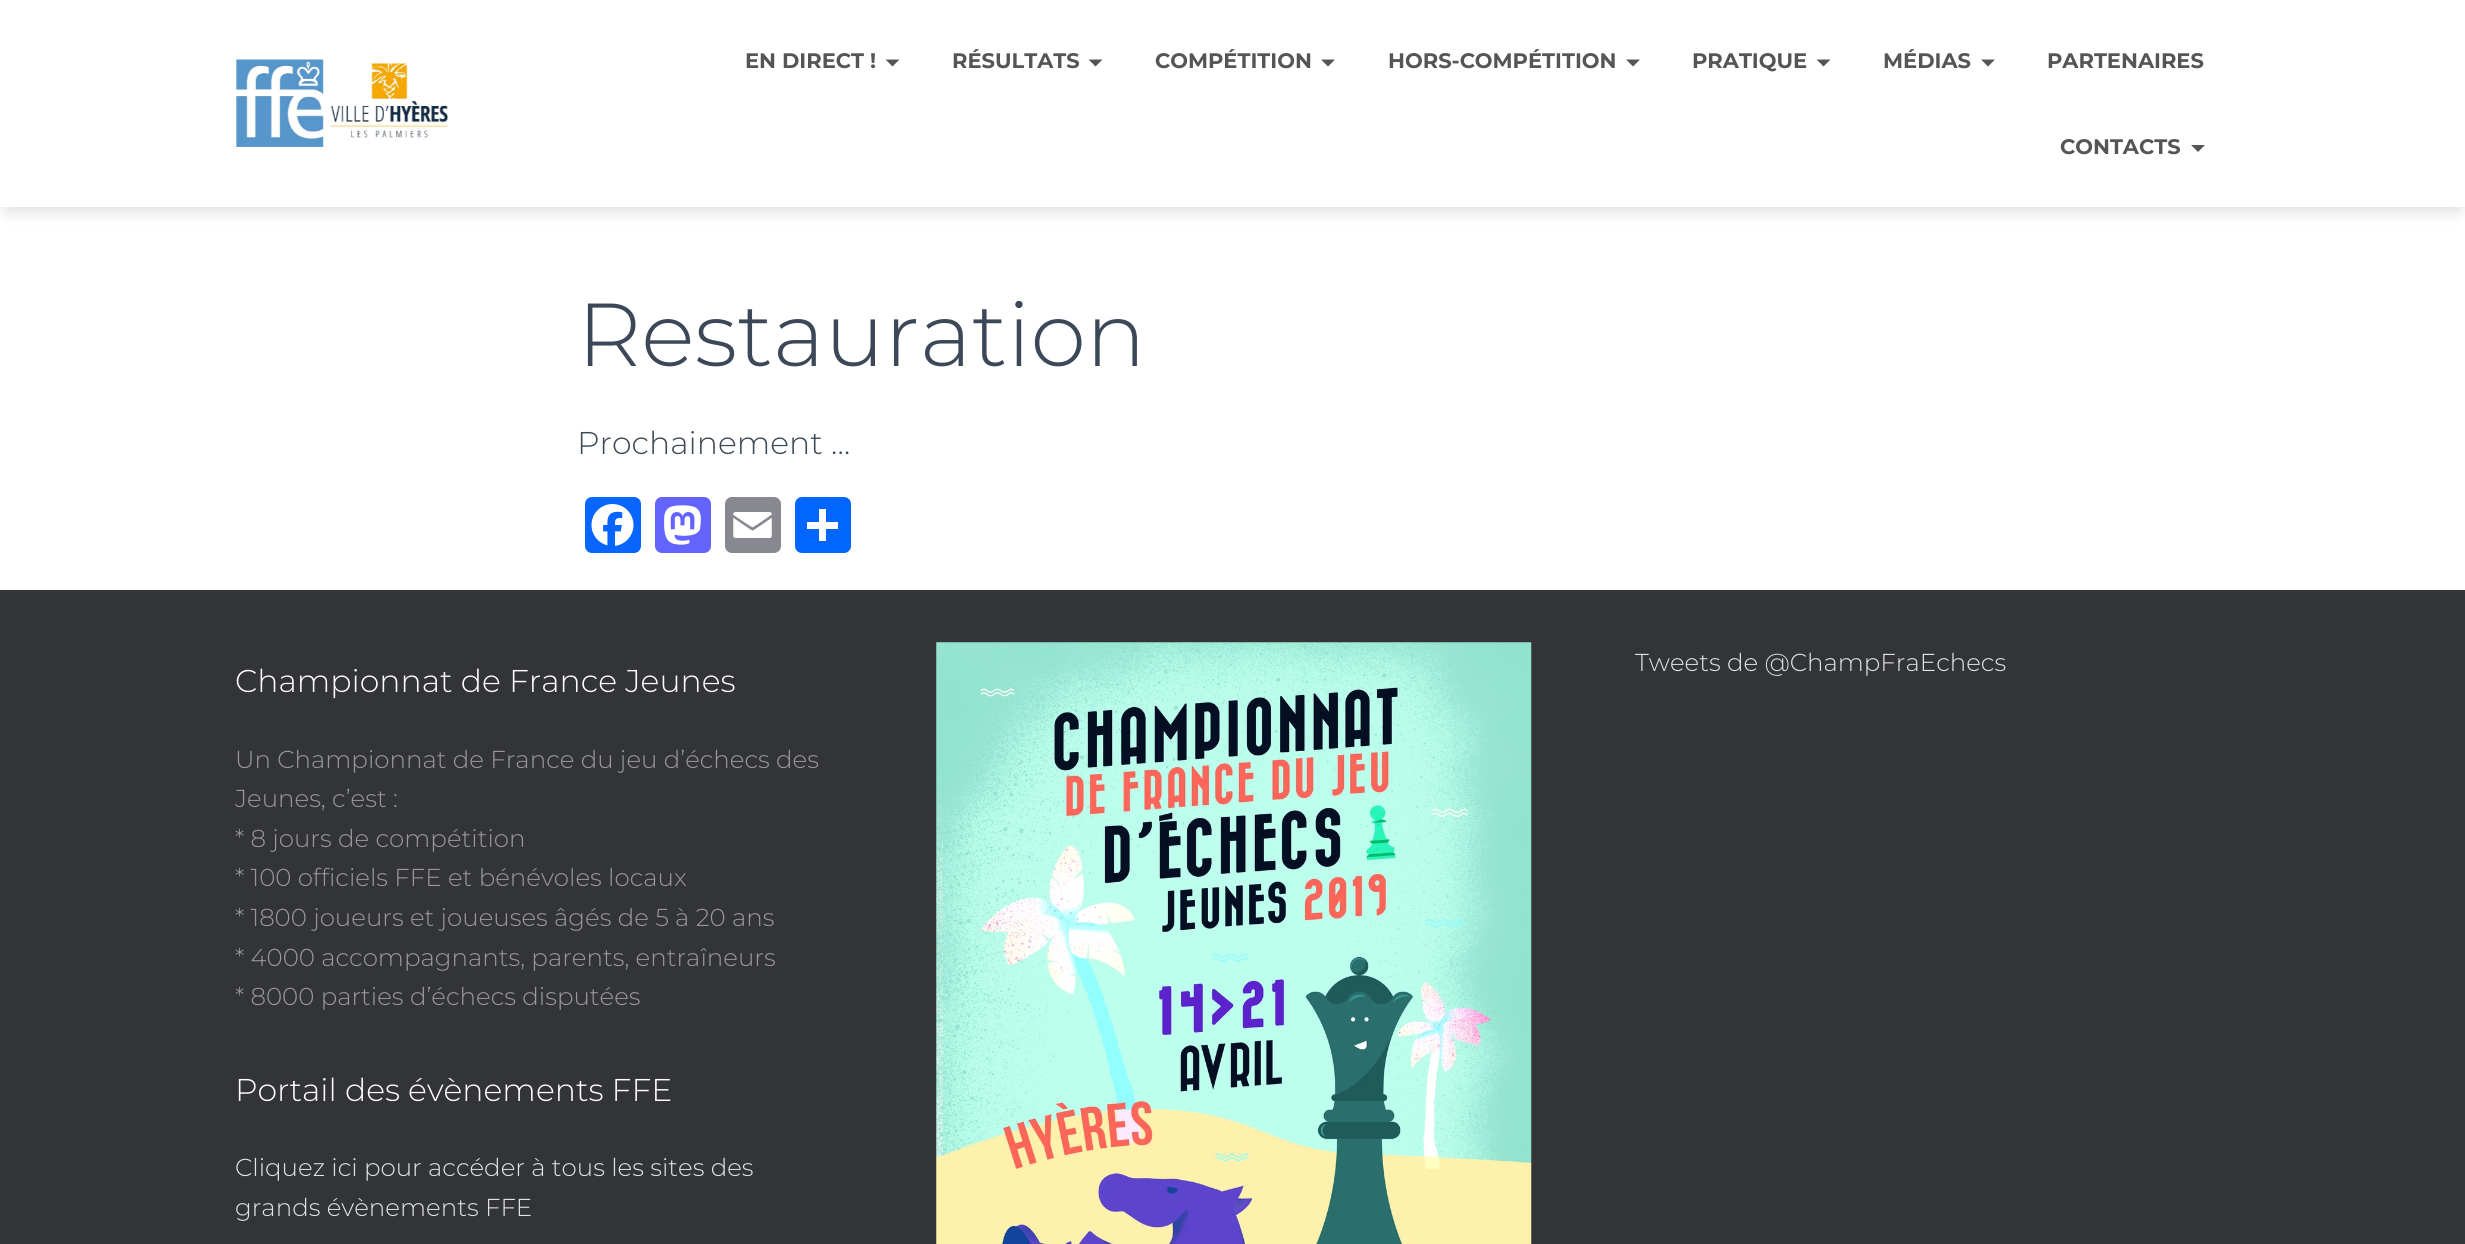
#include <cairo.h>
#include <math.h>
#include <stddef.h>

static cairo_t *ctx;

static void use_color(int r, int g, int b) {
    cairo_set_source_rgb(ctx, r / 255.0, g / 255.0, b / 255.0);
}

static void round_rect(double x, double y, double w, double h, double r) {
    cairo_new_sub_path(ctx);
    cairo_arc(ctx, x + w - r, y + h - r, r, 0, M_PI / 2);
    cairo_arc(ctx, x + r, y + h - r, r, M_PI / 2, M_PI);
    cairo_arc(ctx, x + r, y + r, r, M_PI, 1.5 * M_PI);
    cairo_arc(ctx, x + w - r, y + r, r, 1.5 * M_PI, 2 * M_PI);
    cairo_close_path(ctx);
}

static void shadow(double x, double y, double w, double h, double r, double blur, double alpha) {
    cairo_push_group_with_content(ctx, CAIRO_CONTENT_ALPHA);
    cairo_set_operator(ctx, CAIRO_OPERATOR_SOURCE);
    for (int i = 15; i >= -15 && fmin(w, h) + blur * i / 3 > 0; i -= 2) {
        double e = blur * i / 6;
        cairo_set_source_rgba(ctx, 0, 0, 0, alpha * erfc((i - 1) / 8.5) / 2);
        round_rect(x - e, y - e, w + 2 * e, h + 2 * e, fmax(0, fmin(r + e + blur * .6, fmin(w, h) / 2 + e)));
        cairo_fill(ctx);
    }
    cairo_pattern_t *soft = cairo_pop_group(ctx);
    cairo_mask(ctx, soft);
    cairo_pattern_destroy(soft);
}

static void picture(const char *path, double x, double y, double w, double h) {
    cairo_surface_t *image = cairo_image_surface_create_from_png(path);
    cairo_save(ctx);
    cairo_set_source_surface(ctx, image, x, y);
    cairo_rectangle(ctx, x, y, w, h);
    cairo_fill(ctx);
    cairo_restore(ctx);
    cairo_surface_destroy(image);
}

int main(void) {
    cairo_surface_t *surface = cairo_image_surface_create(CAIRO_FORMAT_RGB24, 2465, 1244);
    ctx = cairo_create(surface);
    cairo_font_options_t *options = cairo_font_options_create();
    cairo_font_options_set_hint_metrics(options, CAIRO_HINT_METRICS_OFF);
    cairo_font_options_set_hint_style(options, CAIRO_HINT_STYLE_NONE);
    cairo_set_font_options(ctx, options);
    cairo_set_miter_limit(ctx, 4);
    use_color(50, 52, 55);
    cairo_paint(ctx);
    use_color(255, 255, 255);
    cairo_rectangle(ctx, 0, 207, 2465, 383);
    cairo_fill(ctx);
    use_color(0, 0, 0);
    shadow(7, 18, 2452, 192, 0, 9, 0.15);
    use_color(255, 255, 255);
    cairo_rectangle(ctx, 0, 0, 2465, 207);
    cairo_fill(ctx);
    picture("img1.png", 236, 59, 213, 88);
    cairo_select_font_face(ctx, "Montserrat", CAIRO_FONT_SLANT_NORMAL, CAIRO_FONT_WEIGHT_BOLD);
    cairo_set_font_size(ctx, 21);
    use_color(85, 85, 85);
    cairo_move_to(ctx, 745, 68);
    cairo_show_text(ctx, "EN DIRECT !");
    cairo_new_path(ctx);
    cairo_move_to(ctx, 885.5, 59.5);
    cairo_line_to(ctx, 899.5, 59.5);
    cairo_line_to(ctx, 892.5, 66.5);
    cairo_close_path(ctx);
    cairo_fill(ctx);
    cairo_move_to(ctx, 952, 68);
    cairo_show_text(ctx, "RÉSULTATS");
    cairo_new_path(ctx);
    cairo_move_to(ctx, 1088.5, 59.5);
    cairo_line_to(ctx, 1102.5, 59.5);
    cairo_line_to(ctx, 1095.5, 66.5);
    cairo_close_path(ctx);
    cairo_fill(ctx);
    cairo_move_to(ctx, 1155, 68);
    cairo_show_text(ctx, "COMPÉTITION");
    cairo_new_path(ctx);
    cairo_move_to(ctx, 1321, 59.5);
    cairo_line_to(ctx, 1335, 59.5);
    cairo_line_to(ctx, 1328, 66.5);
    cairo_close_path(ctx);
    cairo_fill(ctx);
    cairo_move_to(ctx, 1388, 68);
    cairo_show_text(ctx, "HORS-COMPÉTITION");
    cairo_new_path(ctx);
    cairo_move_to(ctx, 1626, 59.5);
    cairo_line_to(ctx, 1640, 59.5);
    cairo_line_to(ctx, 1633, 66.5);
    cairo_close_path(ctx);
    cairo_fill(ctx);
    cairo_move_to(ctx, 1692, 68);
    cairo_show_text(ctx, "PRATIQUE");
    cairo_new_path(ctx);
    cairo_move_to(ctx, 1816.5, 59.5);
    cairo_line_to(ctx, 1830.5, 59.5);
    cairo_line_to(ctx, 1823.5, 66.5);
    cairo_close_path(ctx);
    cairo_fill(ctx);
    cairo_move_to(ctx, 1883, 68);
    cairo_show_text(ctx, "MÉDIAS");
    cairo_new_path(ctx);
    cairo_move_to(ctx, 1981, 59.5);
    cairo_line_to(ctx, 1995, 59.5);
    cairo_line_to(ctx, 1988, 66.5);
    cairo_close_path(ctx);
    cairo_fill(ctx);
    cairo_move_to(ctx, 2047, 68);
    cairo_show_text(ctx, "PARTENAIRES");
    cairo_move_to(ctx, 2060, 154);
    cairo_show_text(ctx, "CONTACTS");
    cairo_new_path(ctx);
    cairo_move_to(ctx, 2191, 145);
    cairo_line_to(ctx, 2205, 145);
    cairo_line_to(ctx, 2198, 152);
    cairo_close_path(ctx);
    cairo_fill(ctx);
    cairo_select_font_face(ctx, "Montserrat Light", CAIRO_FONT_SLANT_NORMAL, CAIRO_FONT_WEIGHT_NORMAL);
    cairo_set_font_size(ctx, 89.25);
    use_color(60, 72, 88);
    cairo_move_to(ctx, 577, 366);
    cairo_show_text(ctx, "Restauration");
    cairo_set_font_size(ctx, 31.5);
    cairo_move_to(ctx, 577, 454);
    cairo_show_text(ctx, "Prochainement …");
    use_color(8, 102, 255);
    round_rect(585, 497, 56, 56, 7);
    cairo_fill(ctx);
    picture("img2.png", 591, 504, 43, 42);
    use_color(99, 100, 255);
    round_rect(655, 497, 56, 56, 7);
    cairo_fill(ctx);
    picture("img3.png", 664, 505, 37, 40);
    use_color(136, 137, 144);
    round_rect(725, 497, 56, 56, 7);
    cairo_fill(ctx);
    picture("img4.png", 733, 512, 39, 26);
    use_color(1, 102, 255);
    round_rect(795, 497, 56, 56, 7);
    cairo_fill(ctx);
    use_color(255, 255, 255);
    cairo_rectangle(ctx, 819, 509, 7, 32);
    cairo_fill(ctx);
    cairo_rectangle(ctx, 807, 522, 31, 7);
    cairo_fill(ctx);
    picture("img5.png", 936, 642, 596, 602);
    cairo_set_font_size(ctx, 24.5);
    use_color(226, 227, 227);
    cairo_move_to(ctx, 1635, 671);
    cairo_show_text(ctx, "Tweets de @ChampFraEchecs");
    cairo_set_font_size(ctx, 31.5);
    use_color(255, 255, 255);
    cairo_move_to(ctx, 235, 692);
    cairo_show_text(ctx, "Championnat de France Jeunes");
    cairo_set_font_size(ctx, 24.5);
    use_color(153, 153, 153);
    cairo_move_to(ctx, 235, 768);
    cairo_show_text(ctx, "Un Championnat de France du jeu d’échecs des");
    cairo_move_to(ctx, 235, 807);
    cairo_show_text(ctx, "Jeunes, c’est :");
    cairo_move_to(ctx, 235, 847);
    cairo_show_text(ctx, "* 8 jours de compétition");
    cairo_move_to(ctx, 235, 886);
    cairo_show_text(ctx, "* 100 officiels FFE et bénévoles locaux");
    cairo_move_to(ctx, 235, 926);
    cairo_show_text(ctx, "* 1800 joueurs et joueuses âgés de 5 à 20 ans");
    cairo_move_to(ctx, 235, 966);
    cairo_show_text(ctx, "* 4000 accompagnants, parents, entraîneurs");
    cairo_move_to(ctx, 235, 1005);
    cairo_show_text(ctx, "* 8000 parties d’échecs disputées");
    cairo_set_font_size(ctx, 31.5);
    use_color(255, 255, 255);
    cairo_move_to(ctx, 235, 1101);
    cairo_show_text(ctx, "Portail des évènements FFE");
    cairo_set_font_size(ctx, 24.5);
    use_color(226, 227, 227);
    cairo_move_to(ctx, 235, 1176);
    cairo_show_text(ctx, "Cliquez ici pour accéder à tous les sites des");
    cairo_move_to(ctx, 235, 1216);
    cairo_show_text(ctx, "grands évènements FFE");
    cairo_surface_write_to_png(surface, "result.png");
    cairo_font_options_destroy(options);
    cairo_destroy(ctx);
    cairo_surface_destroy(surface);
    return 0;
}
